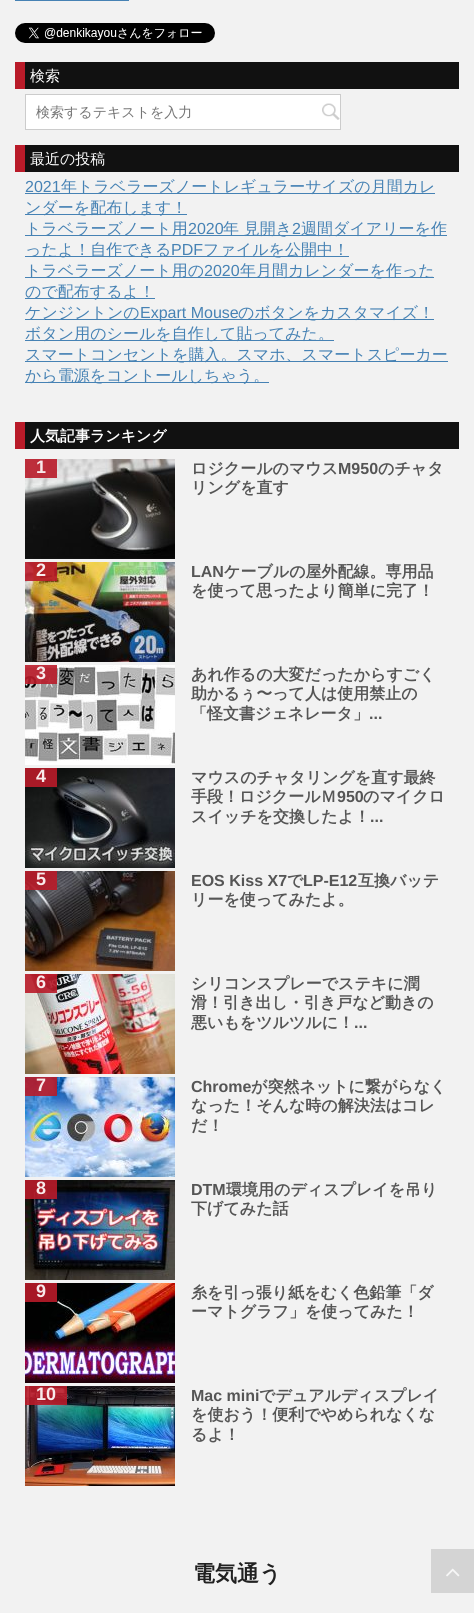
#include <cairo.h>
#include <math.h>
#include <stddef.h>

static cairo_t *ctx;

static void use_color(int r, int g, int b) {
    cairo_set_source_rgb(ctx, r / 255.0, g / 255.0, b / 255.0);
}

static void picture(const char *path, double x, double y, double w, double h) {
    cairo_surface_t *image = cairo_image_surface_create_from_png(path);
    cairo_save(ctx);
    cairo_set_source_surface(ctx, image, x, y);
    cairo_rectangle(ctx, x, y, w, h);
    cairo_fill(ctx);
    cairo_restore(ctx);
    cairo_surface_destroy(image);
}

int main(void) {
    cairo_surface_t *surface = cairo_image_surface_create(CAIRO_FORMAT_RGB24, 474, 1613);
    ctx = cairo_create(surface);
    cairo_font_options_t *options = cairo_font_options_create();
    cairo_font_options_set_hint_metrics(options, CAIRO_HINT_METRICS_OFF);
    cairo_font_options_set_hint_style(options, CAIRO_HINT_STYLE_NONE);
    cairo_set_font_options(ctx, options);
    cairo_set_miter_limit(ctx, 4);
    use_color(242, 242, 242);
    cairo_paint(ctx);
    use_color(70, 130, 180);
    cairo_rectangle(ctx, 15, 0, 114, 1);
    cairo_fill(ctx);
    picture("img1.png", 15, 23, 200, 20);
    use_color(17, 17, 17);
    cairo_rectangle(ctx, 25, 62, 434, 27);
    cairo_fill(ctx);
    use_color(185, 27, 41);
    cairo_rectangle(ctx, 15, 62, 10, 27);
    cairo_fill(ctx);
    cairo_select_font_face(ctx, "WenQuanYi Zen Hei Medium", CAIRO_FONT_SLANT_NORMAL, CAIRO_FONT_WEIGHT_NORMAL);
    cairo_set_font_size(ctx, 15);
    use_color(255, 255, 255);
    cairo_move_to(ctx, 30, 81);
    cairo_show_text(ctx, "検索");
    cairo_rectangle(ctx, 25.5, 94.5, 315, 35);
    use_color(204, 204, 204);
    cairo_set_line_width(ctx, 1);
    cairo_stroke(ctx);
    use_color(255, 255, 255);
    cairo_rectangle(ctx, 26, 95, 314, 34);
    cairo_fill(ctx);
    cairo_set_font_size(ctx, 14);
    use_color(117, 117, 117);
    cairo_move_to(ctx, 36, 117);
    cairo_show_text(ctx, "検索するテキストを入力");
    picture("img2.png", 322, 103, 18, 17);
    use_color(17, 17, 17);
    cairo_rectangle(ctx, 25, 145, 434, 27);
    cairo_fill(ctx);
    use_color(185, 27, 41);
    cairo_rectangle(ctx, 15, 145, 10, 27);
    cairo_fill(ctx);
    cairo_set_font_size(ctx, 15);
    use_color(255, 255, 255);
    cairo_move_to(ctx, 30, 164);
    cairo_show_text(ctx, "最近の投稿");
    cairo_select_font_face(ctx, "Liberation Sans", CAIRO_FONT_SLANT_NORMAL, CAIRO_FONT_WEIGHT_NORMAL);
    cairo_set_font_size(ctx, 16);
    use_color(70, 130, 180);
    cairo_move_to(ctx, 25, 192);
    cairo_show_text(ctx, "2021");
    cairo_rectangle(ctx, 25, 193, 410, 1);
    cairo_fill(ctx);
    cairo_select_font_face(ctx, "WenQuanYi Zen Hei Medium", CAIRO_FONT_SLANT_NORMAL, CAIRO_FONT_WEIGHT_NORMAL);
    cairo_move_to(ctx, 61, 192);
    cairo_show_text(ctx, "年トラベラーズノートレギュラーサイズの月間カレ");
    cairo_rectangle(ctx, 25, 214, 162, 1);
    cairo_fill(ctx);
    cairo_move_to(ctx, 25, 213);
    cairo_show_text(ctx, "ンダーを配布します！");
    cairo_rectangle(ctx, 25, 235, 422, 1);
    cairo_fill(ctx);
    cairo_move_to(ctx, 25, 234);
    cairo_show_text(ctx, "トラベラーズノート用");
    cairo_select_font_face(ctx, "Liberation Sans", CAIRO_FONT_SLANT_NORMAL, CAIRO_FONT_WEIGHT_NORMAL);
    cairo_move_to(ctx, 188, 234);
    cairo_show_text(ctx, "2020");
    cairo_select_font_face(ctx, "WenQuanYi Zen Hei Medium", CAIRO_FONT_SLANT_NORMAL, CAIRO_FONT_WEIGHT_NORMAL);
    cairo_move_to(ctx, 223, 234);
    cairo_show_text(ctx, "年 見開き");
    cairo_select_font_face(ctx, "Liberation Sans", CAIRO_FONT_SLANT_NORMAL, CAIRO_FONT_WEIGHT_NORMAL);
    cairo_move_to(ctx, 292, 234);
    cairo_show_text(ctx, "2");
    cairo_select_font_face(ctx, "WenQuanYi Zen Hei Medium", CAIRO_FONT_SLANT_NORMAL, CAIRO_FONT_WEIGHT_NORMAL);
    cairo_move_to(ctx, 301, 234);
    cairo_show_text(ctx, "週間ダイアリーを作");
    cairo_rectangle(ctx, 25, 256, 324, 1);
    cairo_fill(ctx);
    cairo_move_to(ctx, 25, 255);
    cairo_show_text(ctx, "ったよ！自作できる");
    cairo_select_font_face(ctx, "Liberation Sans", CAIRO_FONT_SLANT_NORMAL, CAIRO_FONT_WEIGHT_NORMAL);
    cairo_move_to(ctx, 171, 255);
    cairo_show_text(ctx, "PDF");
    cairo_select_font_face(ctx, "WenQuanYi Zen Hei Medium", CAIRO_FONT_SLANT_NORMAL, CAIRO_FONT_WEIGHT_NORMAL);
    cairo_move_to(ctx, 203, 255);
    cairo_show_text(ctx, "ファイルを公開中！");
    cairo_rectangle(ctx, 25, 277, 409, 1);
    cairo_fill(ctx);
    cairo_move_to(ctx, 25, 276);
    cairo_show_text(ctx, "トラベラーズノート用の");
    cairo_select_font_face(ctx, "Liberation Sans", CAIRO_FONT_SLANT_NORMAL, CAIRO_FONT_WEIGHT_NORMAL);
    cairo_move_to(ctx, 204, 276);
    cairo_show_text(ctx, "2020");
    cairo_select_font_face(ctx, "WenQuanYi Zen Hei Medium", CAIRO_FONT_SLANT_NORMAL, CAIRO_FONT_WEIGHT_NORMAL);
    cairo_move_to(ctx, 240, 276);
    cairo_show_text(ctx, "年月間カレンダーを作った");
    cairo_rectangle(ctx, 25, 298, 130, 1);
    cairo_fill(ctx);
    cairo_move_to(ctx, 25, 297);
    cairo_show_text(ctx, "ので配布するよ！");
    cairo_rectangle(ctx, 25, 319, 409, 1);
    cairo_fill(ctx);
    cairo_move_to(ctx, 25, 318);
    cairo_show_text(ctx, "ケンジントンの");
    cairo_select_font_face(ctx, "Liberation Sans", CAIRO_FONT_SLANT_NORMAL, CAIRO_FONT_WEIGHT_NORMAL);
    cairo_move_to(ctx, 140, 318);
    cairo_show_text(ctx, "Expart Mouse");
    cairo_select_font_face(ctx, "WenQuanYi Zen Hei Medium", CAIRO_FONT_SLANT_NORMAL, CAIRO_FONT_WEIGHT_NORMAL);
    cairo_move_to(ctx, 238, 318);
    cairo_show_text(ctx, "のボタンをカスタマイズ！");
    cairo_rectangle(ctx, 25, 340, 309, 1);
    cairo_fill(ctx);
    cairo_move_to(ctx, 25, 339);
    cairo_show_text(ctx, "ボタン用のシールを自作して貼ってみた。");
    cairo_rectangle(ctx, 25, 361, 423, 1);
    cairo_fill(ctx);
    cairo_move_to(ctx, 25, 360);
    cairo_show_text(ctx, "スマートコンセントを購入。スマホ、スマートスピーカー");
    cairo_rectangle(ctx, 25, 382, 244, 1);
    cairo_fill(ctx);
    cairo_move_to(ctx, 25, 381);
    cairo_show_text(ctx, "から電源をコントールしちゃう。");
    use_color(17, 17, 17);
    cairo_rectangle(ctx, 25, 422, 434, 27);
    cairo_fill(ctx);
    use_color(185, 27, 41);
    cairo_rectangle(ctx, 15, 422, 10, 27);
    cairo_fill(ctx);
    cairo_select_font_face(ctx, "WenQuanYi Zen Hei", CAIRO_FONT_SLANT_NORMAL, CAIRO_FONT_WEIGHT_BOLD);
    cairo_set_font_size(ctx, 15);
    use_color(255, 255, 255);
    cairo_move_to(ctx, 30, 441);
    cairo_show_text(ctx, "人気記事ランキング");
    picture("img3.png", 25, 459, 150, 100);
    cairo_set_source_rgba(ctx, 0.725, 0.106, 0.161, 0.9);
    cairo_rectangle(ctx, 25, 459, 32, 19);
    cairo_fill(ctx);
    cairo_select_font_face(ctx, "Liberation Sans", CAIRO_FONT_SLANT_NORMAL, CAIRO_FONT_WEIGHT_BOLD);
    cairo_set_font_size(ctx, 18);
    use_color(248, 234, 235);
    cairo_move_to(ctx, 36, 473);
    cairo_show_text(ctx, "1");
    cairo_select_font_face(ctx, "WenQuanYi Zen Hei", CAIRO_FONT_SLANT_NORMAL, CAIRO_FONT_WEIGHT_BOLD);
    cairo_set_font_size(ctx, 16);
    use_color(85, 85, 85);
    cairo_move_to(ctx, 191, 474);
    cairo_show_text(ctx, "ロジクールのマウス");
    cairo_select_font_face(ctx, "Liberation Sans", CAIRO_FONT_SLANT_NORMAL, CAIRO_FONT_WEIGHT_BOLD);
    cairo_move_to(ctx, 338, 474);
    cairo_show_text(ctx, "M950");
    cairo_select_font_face(ctx, "WenQuanYi Zen Hei", CAIRO_FONT_SLANT_NORMAL, CAIRO_FONT_WEIGHT_BOLD);
    cairo_move_to(ctx, 378, 474);
    cairo_show_text(ctx, "のチャタ");
    cairo_move_to(ctx, 191, 493);
    cairo_show_text(ctx, "リングを直す");
    picture("img4.png", 25, 562, 150, 100);
    cairo_set_source_rgba(ctx, 0.725, 0.106, 0.161, 0.9);
    cairo_rectangle(ctx, 25, 562, 32, 19);
    cairo_fill(ctx);
    cairo_select_font_face(ctx, "Liberation Sans", CAIRO_FONT_SLANT_NORMAL, CAIRO_FONT_WEIGHT_BOLD);
    cairo_set_font_size(ctx, 18);
    use_color(248, 234, 235);
    cairo_move_to(ctx, 36, 576);
    cairo_show_text(ctx, "2");
    cairo_set_font_size(ctx, 16);
    use_color(85, 85, 85);
    cairo_move_to(ctx, 191, 577);
    cairo_show_text(ctx, "LAN");
    cairo_select_font_face(ctx, "WenQuanYi Zen Hei", CAIRO_FONT_SLANT_NORMAL, CAIRO_FONT_WEIGHT_BOLD);
    cairo_move_to(ctx, 224, 577);
    cairo_show_text(ctx, "ケーブルの屋外配線。専用品");
    cairo_move_to(ctx, 191, 596);
    cairo_show_text(ctx, "を使って思ったより簡単に完了！");
    picture("img5.png", 25, 665, 150, 100);
    cairo_set_source_rgba(ctx, 0.725, 0.106, 0.161, 0.9);
    cairo_rectangle(ctx, 25, 665, 32, 19);
    cairo_fill(ctx);
    cairo_select_font_face(ctx, "Liberation Sans", CAIRO_FONT_SLANT_NORMAL, CAIRO_FONT_WEIGHT_BOLD);
    cairo_set_font_size(ctx, 18);
    use_color(248, 234, 235);
    cairo_move_to(ctx, 36, 679);
    cairo_show_text(ctx, "3");
    cairo_select_font_face(ctx, "WenQuanYi Zen Hei", CAIRO_FONT_SLANT_NORMAL, CAIRO_FONT_WEIGHT_BOLD);
    cairo_set_font_size(ctx, 16);
    use_color(85, 85, 85);
    cairo_move_to(ctx, 191, 680);
    cairo_show_text(ctx, "あれ作るの大変だったからすごく");
    cairo_move_to(ctx, 191, 699);
    cairo_show_text(ctx, "助かるぅ〜って人は使用禁止の");
    cairo_move_to(ctx, 191, 719);
    cairo_show_text(ctx, "「怪文書ジェネレータ」");
    cairo_select_font_face(ctx, "Liberation Sans", CAIRO_FONT_SLANT_NORMAL, CAIRO_FONT_WEIGHT_BOLD);
    cairo_move_to(ctx, 369, 719);
    cairo_show_text(ctx, "...");
    picture("img6.png", 25, 768, 150, 100);
    cairo_set_source_rgba(ctx, 0.725, 0.106, 0.161, 0.9);
    cairo_rectangle(ctx, 25, 768, 32, 19);
    cairo_fill(ctx);
    cairo_set_font_size(ctx, 18);
    use_color(248, 234, 235);
    cairo_move_to(ctx, 36, 782);
    cairo_show_text(ctx, "4");
    cairo_select_font_face(ctx, "WenQuanYi Zen Hei", CAIRO_FONT_SLANT_NORMAL, CAIRO_FONT_WEIGHT_BOLD);
    cairo_set_font_size(ctx, 16);
    use_color(85, 85, 85);
    cairo_move_to(ctx, 191, 783);
    cairo_show_text(ctx, "マウスのチャタリングを直す最終");
    cairo_move_to(ctx, 191, 802);
    cairo_show_text(ctx, "手段！ロジクールＭ");
    cairo_select_font_face(ctx, "Liberation Sans", CAIRO_FONT_SLANT_NORMAL, CAIRO_FONT_WEIGHT_BOLD);
    cairo_move_to(ctx, 337, 802);
    cairo_show_text(ctx, "950");
    cairo_select_font_face(ctx, "WenQuanYi Zen Hei", CAIRO_FONT_SLANT_NORMAL, CAIRO_FONT_WEIGHT_BOLD);
    cairo_move_to(ctx, 363, 802);
    cairo_show_text(ctx, "のマイクロ");
    cairo_move_to(ctx, 191, 822);
    cairo_show_text(ctx, "スイッチを交換したよ！");
    cairo_select_font_face(ctx, "Liberation Sans", CAIRO_FONT_SLANT_NORMAL, CAIRO_FONT_WEIGHT_BOLD);
    cairo_move_to(ctx, 370, 822);
    cairo_show_text(ctx, "...");
    picture("img7.png", 25, 871, 150, 100);
    cairo_set_source_rgba(ctx, 0.725, 0.106, 0.161, 0.9);
    cairo_rectangle(ctx, 25, 871, 32, 19);
    cairo_fill(ctx);
    cairo_set_font_size(ctx, 18);
    use_color(248, 234, 235);
    cairo_move_to(ctx, 36, 885);
    cairo_show_text(ctx, "5");
    cairo_set_font_size(ctx, 16);
    use_color(85, 85, 85);
    cairo_move_to(ctx, 191, 886);
    cairo_show_text(ctx, "EOS Kiss X7");
    cairo_select_font_face(ctx, "WenQuanYi Zen Hei", CAIRO_FONT_SLANT_NORMAL, CAIRO_FONT_WEIGHT_BOLD);
    cairo_move_to(ctx, 287, 886);
    cairo_show_text(ctx, "で");
    cairo_select_font_face(ctx, "Liberation Sans", CAIRO_FONT_SLANT_NORMAL, CAIRO_FONT_WEIGHT_BOLD);
    cairo_move_to(ctx, 303, 886);
    cairo_show_text(ctx, "LP-E12");
    cairo_select_font_face(ctx, "WenQuanYi Zen Hei", CAIRO_FONT_SLANT_NORMAL, CAIRO_FONT_WEIGHT_BOLD);
    cairo_move_to(ctx, 358, 886);
    cairo_show_text(ctx, "互換バッテ");
    cairo_move_to(ctx, 191, 905);
    cairo_show_text(ctx, "リーを使ってみたよ。");
    picture("img8.png", 25, 974, 150, 100);
    cairo_set_source_rgba(ctx, 0.725, 0.106, 0.161, 0.9);
    cairo_rectangle(ctx, 25, 974, 32, 19);
    cairo_fill(ctx);
    cairo_select_font_face(ctx, "Liberation Sans", CAIRO_FONT_SLANT_NORMAL, CAIRO_FONT_WEIGHT_BOLD);
    cairo_set_font_size(ctx, 18);
    use_color(248, 234, 235);
    cairo_move_to(ctx, 36, 988);
    cairo_show_text(ctx, "6");
    cairo_select_font_face(ctx, "WenQuanYi Zen Hei", CAIRO_FONT_SLANT_NORMAL, CAIRO_FONT_WEIGHT_BOLD);
    cairo_set_font_size(ctx, 16);
    use_color(85, 85, 85);
    cairo_move_to(ctx, 191, 989);
    cairo_show_text(ctx, "シリコンスプレーでステキに潤");
    cairo_move_to(ctx, 191, 1008);
    cairo_show_text(ctx, "滑！引き出し・引き戸など動きの");
    cairo_move_to(ctx, 191, 1028);
    cairo_show_text(ctx, "悪いもをツルツルに！");
    cairo_select_font_face(ctx, "Liberation Sans", CAIRO_FONT_SLANT_NORMAL, CAIRO_FONT_WEIGHT_BOLD);
    cairo_move_to(ctx, 354, 1028);
    cairo_show_text(ctx, "...");
    picture("img9.png", 25, 1077, 150, 100);
    cairo_set_source_rgba(ctx, 0.725, 0.106, 0.161, 0.9);
    cairo_rectangle(ctx, 25, 1077, 32, 19);
    cairo_fill(ctx);
    cairo_set_font_size(ctx, 18);
    use_color(248, 234, 235);
    cairo_move_to(ctx, 36, 1091);
    cairo_show_text(ctx, "7");
    cairo_set_font_size(ctx, 16);
    use_color(85, 85, 85);
    cairo_move_to(ctx, 191, 1092);
    cairo_show_text(ctx, "Chrome");
    cairo_select_font_face(ctx, "WenQuanYi Zen Hei", CAIRO_FONT_SLANT_NORMAL, CAIRO_FONT_WEIGHT_BOLD);
    cairo_move_to(ctx, 251, 1092);
    cairo_show_text(ctx, "が突然ネットに繋がらなく");
    cairo_move_to(ctx, 191, 1111);
    cairo_show_text(ctx, "なった！そんな時の解決法はコレ");
    cairo_move_to(ctx, 191, 1131);
    cairo_show_text(ctx, "だ！");
    picture("img10.png", 25, 1180, 150, 100);
    cairo_set_source_rgba(ctx, 0.725, 0.106, 0.161, 0.9);
    cairo_rectangle(ctx, 25, 1180, 32, 19);
    cairo_fill(ctx);
    cairo_select_font_face(ctx, "Liberation Sans", CAIRO_FONT_SLANT_NORMAL, CAIRO_FONT_WEIGHT_BOLD);
    cairo_set_font_size(ctx, 18);
    use_color(248, 234, 235);
    cairo_move_to(ctx, 36, 1194);
    cairo_show_text(ctx, "8");
    cairo_set_font_size(ctx, 16);
    use_color(85, 85, 85);
    cairo_move_to(ctx, 191, 1195);
    cairo_show_text(ctx, "DTM");
    cairo_select_font_face(ctx, "WenQuanYi Zen Hei", CAIRO_FONT_SLANT_NORMAL, CAIRO_FONT_WEIGHT_BOLD);
    cairo_move_to(ctx, 226, 1195);
    cairo_show_text(ctx, "環境用のディスプレイを吊り");
    cairo_move_to(ctx, 191, 1214);
    cairo_show_text(ctx, "下げてみた話");
    picture("img11.png", 25, 1283, 150, 100);
    cairo_set_source_rgba(ctx, 0.725, 0.106, 0.161, 0.9);
    cairo_rectangle(ctx, 25, 1283, 32, 19);
    cairo_fill(ctx);
    cairo_select_font_face(ctx, "Liberation Sans", CAIRO_FONT_SLANT_NORMAL, CAIRO_FONT_WEIGHT_BOLD);
    cairo_set_font_size(ctx, 18);
    use_color(248, 234, 235);
    cairo_move_to(ctx, 36, 1297);
    cairo_show_text(ctx, "9");
    cairo_select_font_face(ctx, "WenQuanYi Zen Hei", CAIRO_FONT_SLANT_NORMAL, CAIRO_FONT_WEIGHT_BOLD);
    cairo_set_font_size(ctx, 16);
    use_color(85, 85, 85);
    cairo_move_to(ctx, 191, 1298);
    cairo_show_text(ctx, "糸を引っ張り紙をむく色鉛筆「ダ");
    cairo_move_to(ctx, 191, 1317);
    cairo_show_text(ctx, "ーマトグラフ」を使ってみた！");
    picture("img12.png", 25, 1386, 150, 100);
    cairo_set_source_rgba(ctx, 0.725, 0.106, 0.161, 0.9);
    cairo_rectangle(ctx, 25, 1386, 42, 19);
    cairo_fill(ctx);
    cairo_select_font_face(ctx, "Liberation Sans", CAIRO_FONT_SLANT_NORMAL, CAIRO_FONT_WEIGHT_BOLD);
    cairo_set_font_size(ctx, 18);
    use_color(248, 234, 235);
    cairo_move_to(ctx, 36, 1400);
    cairo_show_text(ctx, "10");
    cairo_set_font_size(ctx, 16);
    use_color(85, 85, 85);
    cairo_move_to(ctx, 191, 1401);
    cairo_show_text(ctx, "Mac mini");
    cairo_select_font_face(ctx, "WenQuanYi Zen Hei", CAIRO_FONT_SLANT_NORMAL, CAIRO_FONT_WEIGHT_BOLD);
    cairo_move_to(ctx, 259, 1401);
    cairo_show_text(ctx, "でデュアルディスプレイ");
    cairo_move_to(ctx, 191, 1420);
    cairo_show_text(ctx, "を使おう！便利でやめられなくな");
    cairo_move_to(ctx, 191, 1440);
    cairo_show_text(ctx, "るよ！");
    cairo_set_font_size(ctx, 22);
    use_color(33, 33, 33);
    cairo_move_to(ctx, 193, 1581);
    cairo_show_text(ctx, "電気通う");
    use_color(212, 212, 212);
    cairo_rectangle(ctx, 431, 1549, 43, 44);
    cairo_fill(ctx);
    picture("img13.png", 446, 1568, 14, 9);
    cairo_surface_write_to_png(surface, "result.png");
    cairo_font_options_destroy(options);
    cairo_destroy(ctx);
    cairo_surface_destroy(surface);
    return 0;
}
